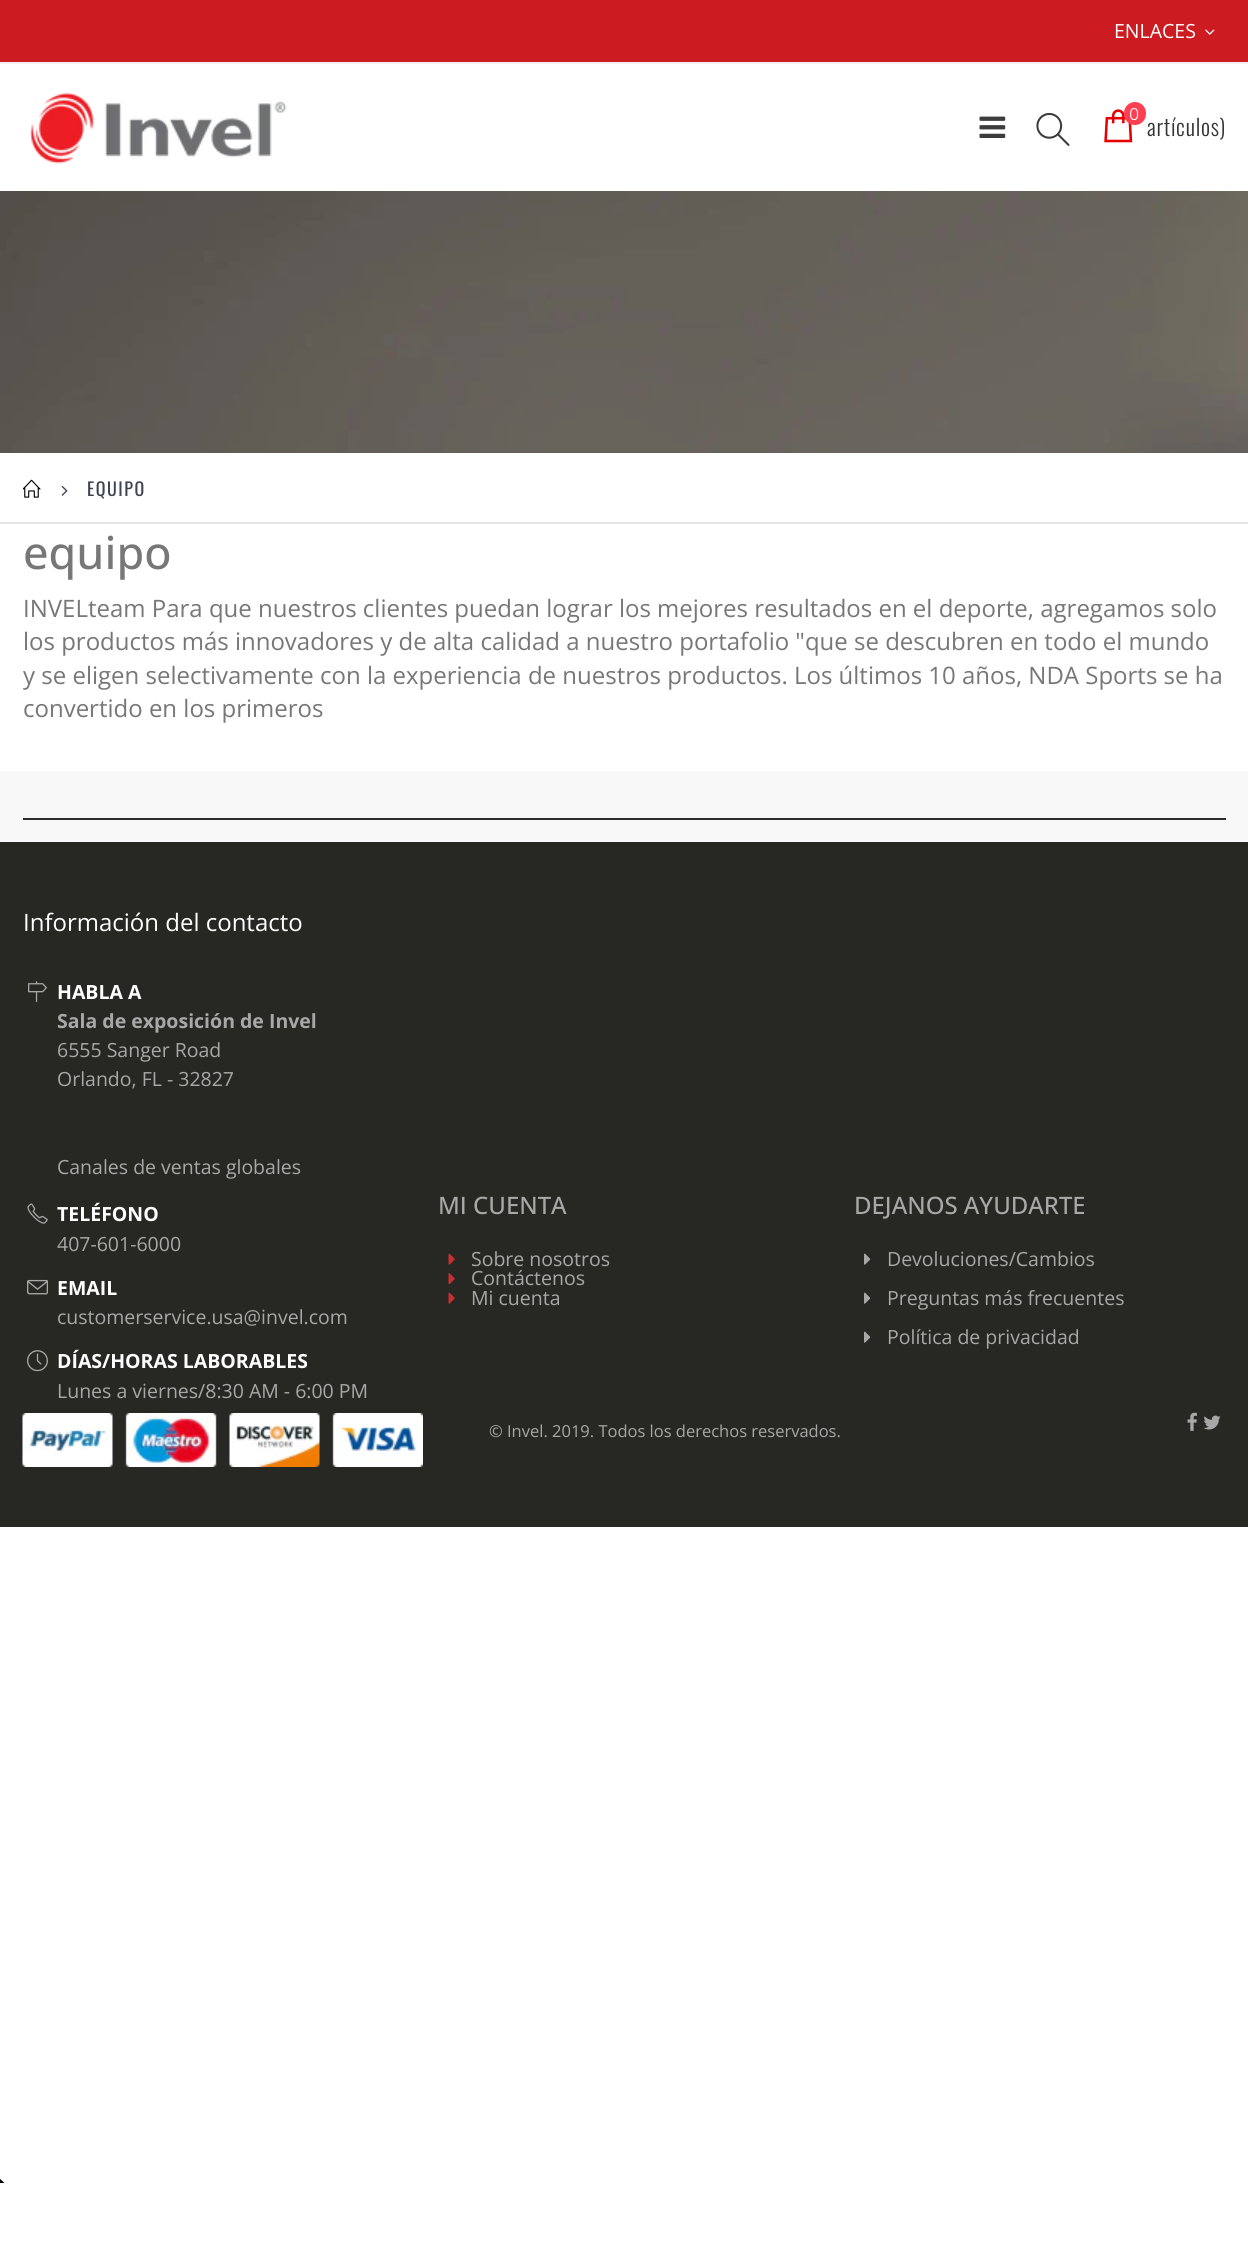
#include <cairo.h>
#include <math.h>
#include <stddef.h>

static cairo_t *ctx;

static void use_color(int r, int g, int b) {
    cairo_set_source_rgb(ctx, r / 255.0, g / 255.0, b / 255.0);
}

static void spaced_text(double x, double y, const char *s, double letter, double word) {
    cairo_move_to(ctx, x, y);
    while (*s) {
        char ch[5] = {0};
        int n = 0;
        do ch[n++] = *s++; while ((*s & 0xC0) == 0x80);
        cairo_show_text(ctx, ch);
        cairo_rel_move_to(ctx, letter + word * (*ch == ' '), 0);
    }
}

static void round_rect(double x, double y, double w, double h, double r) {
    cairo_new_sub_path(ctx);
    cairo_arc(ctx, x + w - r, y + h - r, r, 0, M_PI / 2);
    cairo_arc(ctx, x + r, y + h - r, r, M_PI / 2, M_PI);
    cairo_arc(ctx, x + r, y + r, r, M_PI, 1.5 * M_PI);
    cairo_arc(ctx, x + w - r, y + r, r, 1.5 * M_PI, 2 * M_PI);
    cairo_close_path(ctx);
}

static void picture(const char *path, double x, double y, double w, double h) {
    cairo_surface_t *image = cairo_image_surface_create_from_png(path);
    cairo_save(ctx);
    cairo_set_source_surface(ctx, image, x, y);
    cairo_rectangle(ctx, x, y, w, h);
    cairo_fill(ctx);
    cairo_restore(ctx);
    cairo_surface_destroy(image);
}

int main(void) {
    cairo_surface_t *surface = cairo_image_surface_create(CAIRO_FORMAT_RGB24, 1248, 2249);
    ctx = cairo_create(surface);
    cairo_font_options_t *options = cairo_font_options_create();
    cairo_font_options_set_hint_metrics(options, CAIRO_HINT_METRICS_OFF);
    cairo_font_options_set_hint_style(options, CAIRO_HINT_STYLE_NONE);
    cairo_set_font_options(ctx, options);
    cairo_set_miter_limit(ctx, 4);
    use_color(255, 255, 255);
    cairo_paint(ctx);
    use_color(205, 28, 33);
    cairo_rectangle(ctx, 0, 0, 1248, 62);
    cairo_fill(ctx);
    use_color(242, 242, 243);
    cairo_rectangle(ctx, 0, 62, 1248, 2);
    cairo_fill(ctx);
    cairo_select_font_face(ctx, "Open Sans", CAIRO_FONT_SLANT_NORMAL, CAIRO_FONT_WEIGHT_NORMAL);
    cairo_set_font_size(ctx, 19.5);
    use_color(255, 255, 255);
    cairo_move_to(ctx, 1114, 38);
    cairo_show_text(ctx, "ENLACES");
    picture("img1.png", 1205, 29, 10, 6);
    picture("img2.png", 30, 92, 257, 72);
    picture("img3.png", 979, 116, 27, 22);
    picture("img4.png", 1036, 112, 34, 34);
    picture("img5.png", 1104, 109, 29, 34);
    use_color(255, 64, 82);
    round_rect(1124, 102, 22, 23, 11);
    cairo_fill(ctx);
    cairo_select_font_face(ctx, "Poppins Light", CAIRO_FONT_SLANT_NORMAL, CAIRO_FONT_WEIGHT_NORMAL);
    cairo_set_font_size(ctx, 16.5);
    use_color(255, 255, 255);
    cairo_move_to(ctx, 1129, 120);
    cairo_show_text(ctx, "0");
    cairo_select_font_face(ctx, "Oswald Light", CAIRO_FONT_SLANT_NORMAL, CAIRO_FONT_WEIGHT_NORMAL);
    cairo_set_font_size(ctx, 22.5);
    use_color(51, 51, 51);
    spaced_text(1147, 136, "artículos)", 0.75, 0);
    picture("img6.png", 0, 191, 1248, 262);
    use_color(230, 230, 230);
    cairo_rectangle(ctx, 0, 522, 1248, 2);
    cairo_fill(ctx);
    picture("img7.png", 23, 479, 18, 19);
    picture("img8.png", 61, 485, 7, 11);
    cairo_select_font_face(ctx, "Oswald", CAIRO_FONT_SLANT_NORMAL, CAIRO_FONT_WEIGHT_NORMAL);
    cairo_set_font_size(ctx, 18);
    use_color(60, 66, 80);
    spaced_text(87, 496, "EQUIPO", 1.5, 0);
    cairo_select_font_face(ctx, "Open Sans Medium", CAIRO_FONT_SLANT_NORMAL, CAIRO_FONT_WEIGHT_NORMAL);
    cairo_set_font_size(ctx, 45);
    use_color(119, 119, 119);
    cairo_move_to(ctx, 23, 569);
    cairo_show_text(ctx, "equipo");
    cairo_select_font_face(ctx, "Open Sans", CAIRO_FONT_SLANT_NORMAL, CAIRO_FONT_WEIGHT_NORMAL);
    cairo_set_font_size(ctx, 24);
    cairo_move_to(ctx, 23, 617);
    cairo_show_text(ctx, "INVELteam Para que nuestros clientes puedan lograr los mejores resultados en el deporte, agregamos solo");
    cairo_move_to(ctx, 23, 650);
    cairo_show_text(ctx, "los productos más innovadores y de alta calidad a nuestro portafolio \"que se descubren en todo el mundo");
    cairo_move_to(ctx, 23, 684);
    cairo_show_text(ctx, "y se eligen selectivamente con la experiencia de nuestros productos. Los últimos 10 años, NDA Sports se ha");
    cairo_move_to(ctx, 23, 717);
    cairo_show_text(ctx, "convertido en los primeros");
    use_color(248, 248, 248);
    cairo_rectangle(ctx, 0, 771, 1248, 71);
    cairo_fill(ctx);
    use_color(44, 44, 44);
    cairo_rectangle(ctx, 23, 818, 1203, 2);
    cairo_fill(ctx);
    use_color(39, 39, 35);
    cairo_rectangle(ctx, 0, 842, 1248, 685);
    cairo_fill(ctx);
    use_color(255, 255, 255);
    cairo_move_to(ctx, 23, 931);
    cairo_show_text(ctx, "Información del contacto");
    picture("img9.png", 28, 981, 19, 22);
    cairo_select_font_face(ctx, "Open Sans", CAIRO_FONT_SLANT_NORMAL, CAIRO_FONT_WEIGHT_BOLD);
    cairo_set_font_size(ctx, 19.5);
    cairo_move_to(ctx, 57, 999);
    cairo_show_text(ctx, "HABLA A");
    use_color(168, 168, 168);
    cairo_move_to(ctx, 57, 1028);
    cairo_show_text(ctx, "Sala de exposición de Invel");
    cairo_select_font_face(ctx, "Open Sans", CAIRO_FONT_SLANT_NORMAL, CAIRO_FONT_WEIGHT_NORMAL);
    cairo_move_to(ctx, 57, 1057);
    cairo_show_text(ctx, "6555 Sanger Road");
    cairo_move_to(ctx, 57, 1086);
    cairo_show_text(ctx, "Orlando, FL - 32827");
    cairo_move_to(ctx, 57, 1174);
    cairo_show_text(ctx, "Canales de ventas globales");
    picture("img10.png", 27, 1203, 21, 21);
    cairo_select_font_face(ctx, "Open Sans", CAIRO_FONT_SLANT_NORMAL, CAIRO_FONT_WEIGHT_BOLD);
    use_color(255, 255, 255);
    cairo_move_to(ctx, 57, 1221);
    cairo_show_text(ctx, "TELÉFONO");
    cairo_select_font_face(ctx, "Open Sans", CAIRO_FONT_SLANT_NORMAL, CAIRO_FONT_WEIGHT_NORMAL);
    use_color(168, 168, 168);
    cairo_move_to(ctx, 57, 1251);
    cairo_show_text(ctx, "407-601-6000");
    picture("img11.png", 27, 1279, 21, 16);
    cairo_select_font_face(ctx, "Open Sans", CAIRO_FONT_SLANT_NORMAL, CAIRO_FONT_WEIGHT_BOLD);
    use_color(255, 255, 255);
    cairo_move_to(ctx, 57, 1295);
    cairo_show_text(ctx, "EMAIL");
    cairo_select_font_face(ctx, "Open Sans", CAIRO_FONT_SLANT_NORMAL, CAIRO_FONT_WEIGHT_NORMAL);
    use_color(168, 168, 168);
    cairo_move_to(ctx, 57, 1324);
    cairo_show_text(ctx, "customerservice.usa@invel.com");
    picture("img12.png", 27, 1350, 21, 22);
    cairo_select_font_face(ctx, "Open Sans", CAIRO_FONT_SLANT_NORMAL, CAIRO_FONT_WEIGHT_BOLD);
    use_color(255, 255, 255);
    cairo_move_to(ctx, 57, 1368);
    cairo_show_text(ctx, "DÍAS/HORAS LABORABLES");
    cairo_select_font_face(ctx, "Open Sans", CAIRO_FONT_SLANT_NORMAL, CAIRO_FONT_WEIGHT_NORMAL);
    use_color(168, 168, 168);
    cairo_move_to(ctx, 57, 1398);
    cairo_show_text(ctx, "Lunes a viernes/8:30 AM - 6:00 PM");
    cairo_select_font_face(ctx, "Open Sans Medium", CAIRO_FONT_SLANT_NORMAL, CAIRO_FONT_WEIGHT_NORMAL);
    cairo_set_font_size(ctx, 24);
    cairo_move_to(ctx, 438, 1214);
    cairo_show_text(ctx, "MI CUENTA");
    picture("img13.png", 448, 1253, 7, 12);
    cairo_select_font_face(ctx, "Open Sans", CAIRO_FONT_SLANT_NORMAL, CAIRO_FONT_WEIGHT_NORMAL);
    cairo_set_font_size(ctx, 19.5);
    cairo_move_to(ctx, 471, 1266);
    cairo_show_text(ctx, "Sobre nosotros");
    picture("img14.png", 448, 1273, 7, 12);
    cairo_move_to(ctx, 471, 1285);
    cairo_show_text(ctx, "Contáctenos");
    picture("img13.png", 448, 1292, 7, 12);
    cairo_move_to(ctx, 471, 1305);
    cairo_show_text(ctx, "Mi cuenta");
    cairo_select_font_face(ctx, "Open Sans Medium", CAIRO_FONT_SLANT_NORMAL, CAIRO_FONT_WEIGHT_NORMAL);
    cairo_set_font_size(ctx, 24);
    cairo_move_to(ctx, 854, 1214);
    cairo_show_text(ctx, "DEJANOS AYUDARTE");
    picture("img15.png", 864, 1253, 7, 12);
    cairo_select_font_face(ctx, "Open Sans", CAIRO_FONT_SLANT_NORMAL, CAIRO_FONT_WEIGHT_NORMAL);
    cairo_set_font_size(ctx, 19.5);
    cairo_move_to(ctx, 887, 1266);
    cairo_show_text(ctx, "Devoluciones/Cambios");
    picture("img15.png", 864, 1292, 7, 12);
    cairo_move_to(ctx, 887, 1305);
    cairo_show_text(ctx, "Preguntas más frecuentes");
    picture("img15.png", 864, 1331, 7, 12);
    cairo_move_to(ctx, 887, 1344);
    cairo_show_text(ctx, "Política de privacidad");
    picture("img16.png", 22, 1413, 401, 54);
    cairo_set_font_size(ctx, 16.5);
    cairo_move_to(ctx, 489, 1437);
    cairo_show_text(ctx, "© Invel. 2019. Todos los derechos reservados.");
    picture("img17.png", 1187, 1412, 10, 19);
    picture("img18.png", 1203, 1415, 18, 15);
    use_color(0, 0, 0);
    cairo_set_fill_rule(ctx, CAIRO_FILL_RULE_EVEN_ODD);
    cairo_new_path(ctx);
    cairo_move_to(ctx, -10.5, 2183);
    cairo_line_to(ctx, -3, 2176);
    cairo_line_to(ctx, 4.5, 2183);
    cairo_close_path(ctx);
    cairo_fill(ctx);
    cairo_surface_write_to_png(surface, "result.png");
    cairo_font_options_destroy(options);
    cairo_destroy(ctx);
    cairo_surface_destroy(surface);
    return 0;
}
